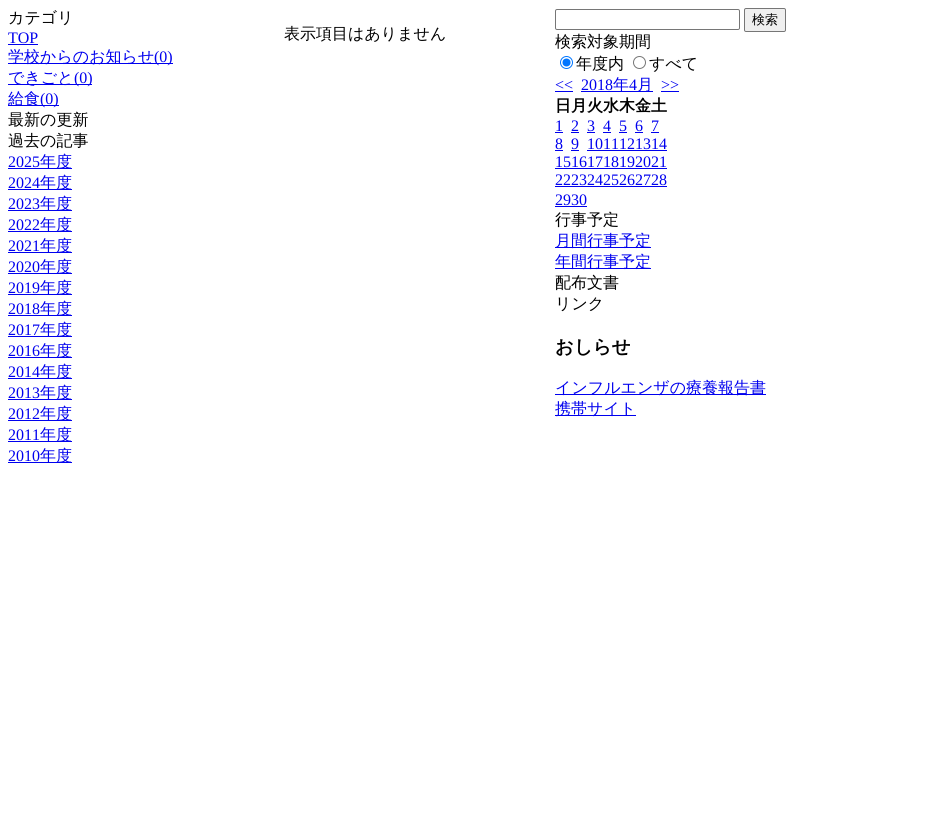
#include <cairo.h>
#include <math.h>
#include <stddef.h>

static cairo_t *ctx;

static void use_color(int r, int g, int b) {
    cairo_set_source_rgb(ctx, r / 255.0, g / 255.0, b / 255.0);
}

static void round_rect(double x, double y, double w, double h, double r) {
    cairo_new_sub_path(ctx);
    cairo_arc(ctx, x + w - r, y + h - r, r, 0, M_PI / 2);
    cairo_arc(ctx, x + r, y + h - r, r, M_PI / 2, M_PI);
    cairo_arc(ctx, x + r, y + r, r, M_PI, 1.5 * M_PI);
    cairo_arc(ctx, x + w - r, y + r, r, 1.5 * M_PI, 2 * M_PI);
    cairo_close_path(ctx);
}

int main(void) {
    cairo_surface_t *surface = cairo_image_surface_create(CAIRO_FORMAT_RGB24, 950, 836);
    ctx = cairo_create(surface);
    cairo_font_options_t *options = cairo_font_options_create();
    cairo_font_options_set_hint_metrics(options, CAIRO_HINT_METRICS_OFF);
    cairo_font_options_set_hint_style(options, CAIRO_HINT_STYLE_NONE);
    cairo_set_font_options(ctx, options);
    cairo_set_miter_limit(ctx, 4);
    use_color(255, 255, 255);
    cairo_paint(ctx);
    cairo_select_font_face(ctx, "WenQuanYi Zen Hei Medium", CAIRO_FONT_SLANT_NORMAL, CAIRO_FONT_WEIGHT_NORMAL);
    cairo_set_font_size(ctx, 16);
    use_color(0, 0, 0);
    cairo_move_to(ctx, 8, 23);
    cairo_show_text(ctx, "カテゴリ");
    cairo_select_font_face(ctx, "Liberation Serif", CAIRO_FONT_SLANT_NORMAL, CAIRO_FONT_WEIGHT_NORMAL);
    use_color(0, 0, 238);
    cairo_move_to(ctx, 8, 43);
    cairo_show_text(ctx, "TOP");
    cairo_rectangle(ctx, 8, 44, 30, 1);
    cairo_fill(ctx);
    cairo_rectangle(ctx, 8, 63, 165, 1);
    cairo_fill(ctx);
    cairo_select_font_face(ctx, "WenQuanYi Zen Hei Medium", CAIRO_FONT_SLANT_NORMAL, CAIRO_FONT_WEIGHT_NORMAL);
    cairo_move_to(ctx, 8, 62);
    cairo_show_text(ctx, "学校からのお知らせ");
    cairo_select_font_face(ctx, "Liberation Serif", CAIRO_FONT_SLANT_NORMAL, CAIRO_FONT_WEIGHT_NORMAL);
    cairo_move_to(ctx, 154, 62);
    cairo_show_text(ctx, "(0)");
    cairo_rectangle(ctx, 8, 84, 84, 1);
    cairo_fill(ctx);
    cairo_select_font_face(ctx, "WenQuanYi Zen Hei Medium", CAIRO_FONT_SLANT_NORMAL, CAIRO_FONT_WEIGHT_NORMAL);
    cairo_move_to(ctx, 8, 83);
    cairo_show_text(ctx, "できごと");
    cairo_select_font_face(ctx, "Liberation Serif", CAIRO_FONT_SLANT_NORMAL, CAIRO_FONT_WEIGHT_NORMAL);
    cairo_move_to(ctx, 74, 83);
    cairo_show_text(ctx, "(0)");
    cairo_rectangle(ctx, 8, 105, 51, 1);
    cairo_fill(ctx);
    cairo_select_font_face(ctx, "WenQuanYi Zen Hei Medium", CAIRO_FONT_SLANT_NORMAL, CAIRO_FONT_WEIGHT_NORMAL);
    cairo_move_to(ctx, 8, 104);
    cairo_show_text(ctx, "給食");
    cairo_select_font_face(ctx, "Liberation Serif", CAIRO_FONT_SLANT_NORMAL, CAIRO_FONT_WEIGHT_NORMAL);
    cairo_move_to(ctx, 40, 104);
    cairo_show_text(ctx, "(0)");
    cairo_select_font_face(ctx, "WenQuanYi Zen Hei Medium", CAIRO_FONT_SLANT_NORMAL, CAIRO_FONT_WEIGHT_NORMAL);
    use_color(0, 0, 0);
    cairo_move_to(ctx, 8, 125);
    cairo_show_text(ctx, "最新の更新");
    cairo_move_to(ctx, 8, 146);
    cairo_show_text(ctx, "過去の記事");
    cairo_select_font_face(ctx, "Liberation Serif", CAIRO_FONT_SLANT_NORMAL, CAIRO_FONT_WEIGHT_NORMAL);
    use_color(0, 0, 238);
    cairo_move_to(ctx, 8, 167);
    cairo_show_text(ctx, "2025");
    cairo_rectangle(ctx, 8, 168, 64, 1);
    cairo_fill(ctx);
    cairo_select_font_face(ctx, "WenQuanYi Zen Hei Medium", CAIRO_FONT_SLANT_NORMAL, CAIRO_FONT_WEIGHT_NORMAL);
    cairo_move_to(ctx, 40, 167);
    cairo_show_text(ctx, "年度");
    cairo_select_font_face(ctx, "Liberation Serif", CAIRO_FONT_SLANT_NORMAL, CAIRO_FONT_WEIGHT_NORMAL);
    cairo_move_to(ctx, 8, 188);
    cairo_show_text(ctx, "2024");
    cairo_rectangle(ctx, 8, 189, 64, 1);
    cairo_fill(ctx);
    cairo_select_font_face(ctx, "WenQuanYi Zen Hei Medium", CAIRO_FONT_SLANT_NORMAL, CAIRO_FONT_WEIGHT_NORMAL);
    cairo_move_to(ctx, 40, 188);
    cairo_show_text(ctx, "年度");
    cairo_select_font_face(ctx, "Liberation Serif", CAIRO_FONT_SLANT_NORMAL, CAIRO_FONT_WEIGHT_NORMAL);
    cairo_move_to(ctx, 8, 209);
    cairo_show_text(ctx, "2023");
    cairo_rectangle(ctx, 8, 210, 64, 1);
    cairo_fill(ctx);
    cairo_select_font_face(ctx, "WenQuanYi Zen Hei Medium", CAIRO_FONT_SLANT_NORMAL, CAIRO_FONT_WEIGHT_NORMAL);
    cairo_move_to(ctx, 40, 209);
    cairo_show_text(ctx, "年度");
    cairo_select_font_face(ctx, "Liberation Serif", CAIRO_FONT_SLANT_NORMAL, CAIRO_FONT_WEIGHT_NORMAL);
    cairo_move_to(ctx, 8, 230);
    cairo_show_text(ctx, "2022");
    cairo_rectangle(ctx, 8, 231, 64, 1);
    cairo_fill(ctx);
    cairo_select_font_face(ctx, "WenQuanYi Zen Hei Medium", CAIRO_FONT_SLANT_NORMAL, CAIRO_FONT_WEIGHT_NORMAL);
    cairo_move_to(ctx, 40, 230);
    cairo_show_text(ctx, "年度");
    cairo_select_font_face(ctx, "Liberation Serif", CAIRO_FONT_SLANT_NORMAL, CAIRO_FONT_WEIGHT_NORMAL);
    cairo_move_to(ctx, 8, 251);
    cairo_show_text(ctx, "2021");
    cairo_rectangle(ctx, 8, 252, 64, 1);
    cairo_fill(ctx);
    cairo_select_font_face(ctx, "WenQuanYi Zen Hei Medium", CAIRO_FONT_SLANT_NORMAL, CAIRO_FONT_WEIGHT_NORMAL);
    cairo_move_to(ctx, 40, 251);
    cairo_show_text(ctx, "年度");
    cairo_select_font_face(ctx, "Liberation Serif", CAIRO_FONT_SLANT_NORMAL, CAIRO_FONT_WEIGHT_NORMAL);
    cairo_move_to(ctx, 8, 272);
    cairo_show_text(ctx, "2020");
    cairo_rectangle(ctx, 8, 273, 64, 1);
    cairo_fill(ctx);
    cairo_select_font_face(ctx, "WenQuanYi Zen Hei Medium", CAIRO_FONT_SLANT_NORMAL, CAIRO_FONT_WEIGHT_NORMAL);
    cairo_move_to(ctx, 40, 272);
    cairo_show_text(ctx, "年度");
    cairo_select_font_face(ctx, "Liberation Serif", CAIRO_FONT_SLANT_NORMAL, CAIRO_FONT_WEIGHT_NORMAL);
    cairo_move_to(ctx, 8, 293);
    cairo_show_text(ctx, "2019");
    cairo_rectangle(ctx, 8, 294, 64, 1);
    cairo_fill(ctx);
    cairo_select_font_face(ctx, "WenQuanYi Zen Hei Medium", CAIRO_FONT_SLANT_NORMAL, CAIRO_FONT_WEIGHT_NORMAL);
    cairo_move_to(ctx, 40, 293);
    cairo_show_text(ctx, "年度");
    cairo_select_font_face(ctx, "Liberation Serif", CAIRO_FONT_SLANT_NORMAL, CAIRO_FONT_WEIGHT_NORMAL);
    cairo_move_to(ctx, 8, 314);
    cairo_show_text(ctx, "2018");
    cairo_rectangle(ctx, 8, 315, 64, 1);
    cairo_fill(ctx);
    cairo_select_font_face(ctx, "WenQuanYi Zen Hei Medium", CAIRO_FONT_SLANT_NORMAL, CAIRO_FONT_WEIGHT_NORMAL);
    cairo_move_to(ctx, 40, 314);
    cairo_show_text(ctx, "年度");
    cairo_select_font_face(ctx, "Liberation Serif", CAIRO_FONT_SLANT_NORMAL, CAIRO_FONT_WEIGHT_NORMAL);
    cairo_move_to(ctx, 8, 335);
    cairo_show_text(ctx, "2017");
    cairo_rectangle(ctx, 8, 336, 64, 1);
    cairo_fill(ctx);
    cairo_select_font_face(ctx, "WenQuanYi Zen Hei Medium", CAIRO_FONT_SLANT_NORMAL, CAIRO_FONT_WEIGHT_NORMAL);
    cairo_move_to(ctx, 40, 335);
    cairo_show_text(ctx, "年度");
    cairo_select_font_face(ctx, "Liberation Serif", CAIRO_FONT_SLANT_NORMAL, CAIRO_FONT_WEIGHT_NORMAL);
    cairo_move_to(ctx, 8, 356);
    cairo_show_text(ctx, "2016");
    cairo_rectangle(ctx, 8, 357, 64, 1);
    cairo_fill(ctx);
    cairo_select_font_face(ctx, "WenQuanYi Zen Hei Medium", CAIRO_FONT_SLANT_NORMAL, CAIRO_FONT_WEIGHT_NORMAL);
    cairo_move_to(ctx, 40, 356);
    cairo_show_text(ctx, "年度");
    cairo_select_font_face(ctx, "Liberation Serif", CAIRO_FONT_SLANT_NORMAL, CAIRO_FONT_WEIGHT_NORMAL);
    cairo_move_to(ctx, 8, 377);
    cairo_show_text(ctx, "2014");
    cairo_rectangle(ctx, 8, 378, 64, 1);
    cairo_fill(ctx);
    cairo_select_font_face(ctx, "WenQuanYi Zen Hei Medium", CAIRO_FONT_SLANT_NORMAL, CAIRO_FONT_WEIGHT_NORMAL);
    cairo_move_to(ctx, 40, 377);
    cairo_show_text(ctx, "年度");
    cairo_select_font_face(ctx, "Liberation Serif", CAIRO_FONT_SLANT_NORMAL, CAIRO_FONT_WEIGHT_NORMAL);
    cairo_move_to(ctx, 8, 398);
    cairo_show_text(ctx, "2013");
    cairo_rectangle(ctx, 8, 399, 64, 1);
    cairo_fill(ctx);
    cairo_select_font_face(ctx, "WenQuanYi Zen Hei Medium", CAIRO_FONT_SLANT_NORMAL, CAIRO_FONT_WEIGHT_NORMAL);
    cairo_move_to(ctx, 40, 398);
    cairo_show_text(ctx, "年度");
    cairo_select_font_face(ctx, "Liberation Serif", CAIRO_FONT_SLANT_NORMAL, CAIRO_FONT_WEIGHT_NORMAL);
    cairo_move_to(ctx, 8, 419);
    cairo_show_text(ctx, "2012");
    cairo_rectangle(ctx, 8, 420, 64, 1);
    cairo_fill(ctx);
    cairo_select_font_face(ctx, "WenQuanYi Zen Hei Medium", CAIRO_FONT_SLANT_NORMAL, CAIRO_FONT_WEIGHT_NORMAL);
    cairo_move_to(ctx, 40, 419);
    cairo_show_text(ctx, "年度");
    cairo_select_font_face(ctx, "Liberation Serif", CAIRO_FONT_SLANT_NORMAL, CAIRO_FONT_WEIGHT_NORMAL);
    cairo_move_to(ctx, 8, 440);
    cairo_show_text(ctx, "2011");
    cairo_rectangle(ctx, 8, 441, 64, 1);
    cairo_fill(ctx);
    cairo_select_font_face(ctx, "WenQuanYi Zen Hei Medium", CAIRO_FONT_SLANT_NORMAL, CAIRO_FONT_WEIGHT_NORMAL);
    cairo_move_to(ctx, 40, 440);
    cairo_show_text(ctx, "年度");
    cairo_select_font_face(ctx, "Liberation Serif", CAIRO_FONT_SLANT_NORMAL, CAIRO_FONT_WEIGHT_NORMAL);
    cairo_move_to(ctx, 8, 461);
    cairo_show_text(ctx, "2010");
    cairo_rectangle(ctx, 8, 462, 64, 1);
    cairo_fill(ctx);
    cairo_select_font_face(ctx, "WenQuanYi Zen Hei Medium", CAIRO_FONT_SLANT_NORMAL, CAIRO_FONT_WEIGHT_NORMAL);
    cairo_move_to(ctx, 40, 461);
    cairo_show_text(ctx, "年度");
    use_color(0, 0, 0);
    cairo_move_to(ctx, 284, 39);
    cairo_show_text(ctx, "表示項目はありません");
    round_rect(555.5, 9.5, 184, 20, 1.5);
    use_color(118, 118, 118);
    cairo_set_line_width(ctx, 1);
    cairo_stroke(ctx);
    use_color(239, 239, 239);
    round_rect(744.5, 8.5, 41, 23, 1.5);
    cairo_fill_preserve(ctx);
    use_color(118, 118, 118);
    cairo_stroke(ctx);
    cairo_set_font_size(ctx, 13);
    use_color(0, 0, 0);
    cairo_move_to(ctx, 752, 24);
    cairo_show_text(ctx, "検索");
    cairo_set_font_size(ctx, 16);
    cairo_move_to(ctx, 555, 47);
    cairo_show_text(ctx, "検索対象期間");
    cairo_new_path(ctx);
    cairo_arc(ctx, 566.5, 62.5, 6, 0, 2 * M_PI);
    use_color(0, 117, 255);
    cairo_stroke(ctx);
    cairo_arc(ctx, 566.5, 62.5, 4, 0, 2 * M_PI);
    cairo_fill(ctx);
    use_color(0, 0, 0);
    cairo_move_to(ctx, 576, 69);
    cairo_show_text(ctx, "年度内");
    cairo_new_path(ctx);
    cairo_arc(ctx, 639.5, 62.5, 6, 0, 2 * M_PI);
    use_color(118, 118, 118);
    cairo_stroke(ctx);
    use_color(0, 0, 0);
    cairo_move_to(ctx, 649, 69);
    cairo_show_text(ctx, "すべて");
    cairo_select_font_face(ctx, "Liberation Serif", CAIRO_FONT_SLANT_NORMAL, CAIRO_FONT_WEIGHT_NORMAL);
    use_color(0, 0, 238);
    cairo_move_to(ctx, 555, 90);
    cairo_show_text(ctx, "<<");
    cairo_rectangle(ctx, 555, 91, 18, 1);
    cairo_fill(ctx);
    cairo_move_to(ctx, 581, 90);
    cairo_show_text(ctx, "2018");
    cairo_rectangle(ctx, 581, 91, 72, 1);
    cairo_fill(ctx);
    cairo_select_font_face(ctx, "WenQuanYi Zen Hei Medium", CAIRO_FONT_SLANT_NORMAL, CAIRO_FONT_WEIGHT_NORMAL);
    cairo_move_to(ctx, 613, 90);
    cairo_show_text(ctx, "年");
    cairo_select_font_face(ctx, "Liberation Serif", CAIRO_FONT_SLANT_NORMAL, CAIRO_FONT_WEIGHT_NORMAL);
    cairo_move_to(ctx, 629, 90);
    cairo_show_text(ctx, "4");
    cairo_select_font_face(ctx, "WenQuanYi Zen Hei Medium", CAIRO_FONT_SLANT_NORMAL, CAIRO_FONT_WEIGHT_NORMAL);
    cairo_move_to(ctx, 637, 90);
    cairo_show_text(ctx, "月");
    cairo_select_font_face(ctx, "Liberation Serif", CAIRO_FONT_SLANT_NORMAL, CAIRO_FONT_WEIGHT_NORMAL);
    cairo_move_to(ctx, 661, 90);
    cairo_show_text(ctx, ">>");
    cairo_rectangle(ctx, 661, 91, 18, 1);
    cairo_fill(ctx);
    cairo_select_font_face(ctx, "WenQuanYi Zen Hei", CAIRO_FONT_SLANT_NORMAL, CAIRO_FONT_WEIGHT_BOLD);
    use_color(0, 0, 0);
    cairo_move_to(ctx, 555, 111);
    cairo_show_text(ctx, "日月火水木金土");
    cairo_select_font_face(ctx, "Liberation Serif", CAIRO_FONT_SLANT_NORMAL, CAIRO_FONT_WEIGHT_NORMAL);
    use_color(0, 0, 238);
    cairo_move_to(ctx, 555, 131);
    cairo_show_text(ctx, "1");
    cairo_rectangle(ctx, 555, 132, 8, 1);
    cairo_fill(ctx);
    cairo_move_to(ctx, 571, 131);
    cairo_show_text(ctx, "2");
    cairo_rectangle(ctx, 571, 132, 8, 1);
    cairo_fill(ctx);
    cairo_move_to(ctx, 587, 131);
    cairo_show_text(ctx, "3");
    cairo_rectangle(ctx, 587, 132, 8, 1);
    cairo_fill(ctx);
    cairo_move_to(ctx, 603, 131);
    cairo_show_text(ctx, "4");
    cairo_rectangle(ctx, 603, 132, 8, 1);
    cairo_fill(ctx);
    cairo_move_to(ctx, 619, 131);
    cairo_show_text(ctx, "5");
    cairo_rectangle(ctx, 619, 132, 8, 1);
    cairo_fill(ctx);
    cairo_move_to(ctx, 635, 131);
    cairo_show_text(ctx, "6");
    cairo_rectangle(ctx, 635, 132, 8, 1);
    cairo_fill(ctx);
    cairo_move_to(ctx, 651, 131);
    cairo_show_text(ctx, "7");
    cairo_rectangle(ctx, 651, 132, 8, 1);
    cairo_fill(ctx);
    cairo_move_to(ctx, 555, 149);
    cairo_show_text(ctx, "8");
    cairo_rectangle(ctx, 555, 150, 8, 1);
    cairo_fill(ctx);
    cairo_move_to(ctx, 571, 149);
    cairo_show_text(ctx, "9");
    cairo_rectangle(ctx, 571, 150, 8, 1);
    cairo_fill(ctx);
    cairo_move_to(ctx, 587, 149);
    cairo_show_text(ctx, "1011121314");
    cairo_rectangle(ctx, 587, 150, 80, 1);
    cairo_fill(ctx);
    cairo_move_to(ctx, 555, 167);
    cairo_show_text(ctx, "15161718192021");
    cairo_rectangle(ctx, 555, 168, 112, 1);
    cairo_fill(ctx);
    cairo_move_to(ctx, 555, 185);
    cairo_show_text(ctx, "22232425262728");
    cairo_rectangle(ctx, 555, 186, 112, 1);
    cairo_fill(ctx);
    cairo_move_to(ctx, 555, 205);
    cairo_show_text(ctx, "2930");
    cairo_rectangle(ctx, 555, 206, 32, 1);
    cairo_fill(ctx);
    cairo_select_font_face(ctx, "WenQuanYi Zen Hei Medium", CAIRO_FONT_SLANT_NORMAL, CAIRO_FONT_WEIGHT_NORMAL);
    use_color(0, 0, 0);
    cairo_move_to(ctx, 555, 225);
    cairo_show_text(ctx, "行事予定");
    use_color(0, 0, 238);
    cairo_rectangle(ctx, 555, 247, 96, 1);
    cairo_fill(ctx);
    cairo_move_to(ctx, 555, 246);
    cairo_show_text(ctx, "月間行事予定");
    cairo_rectangle(ctx, 555, 268, 96, 1);
    cairo_fill(ctx);
    cairo_move_to(ctx, 555, 267);
    cairo_show_text(ctx, "年間行事予定");
    use_color(0, 0, 0);
    cairo_move_to(ctx, 555, 288);
    cairo_show_text(ctx, "配布文書");
    cairo_move_to(ctx, 555, 309);
    cairo_show_text(ctx, "リンク");
    cairo_select_font_face(ctx, "WenQuanYi Zen Hei", CAIRO_FONT_SLANT_NORMAL, CAIRO_FONT_WEIGHT_BOLD);
    cairo_set_font_size(ctx, 18.5);
    cairo_move_to(ctx, 555, 353);
    cairo_show_text(ctx, "おしらせ");
    use_color(0, 0, 238);
    cairo_rectangle(ctx, 555, 394, 211, 1);
    cairo_fill(ctx);
    cairo_select_font_face(ctx, "WenQuanYi Zen Hei Medium", CAIRO_FONT_SLANT_NORMAL, CAIRO_FONT_WEIGHT_NORMAL);
    cairo_set_font_size(ctx, 16);
    cairo_move_to(ctx, 555, 393);
    cairo_show_text(ctx, "インフルエンザの療養報告書");
    cairo_rectangle(ctx, 555, 415, 81, 1);
    cairo_fill(ctx);
    cairo_move_to(ctx, 555, 414);
    cairo_show_text(ctx, "携帯サイト");
    cairo_surface_write_to_png(surface, "result.png");
    cairo_font_options_destroy(options);
    cairo_destroy(ctx);
    cairo_surface_destroy(surface);
    return 0;
}
